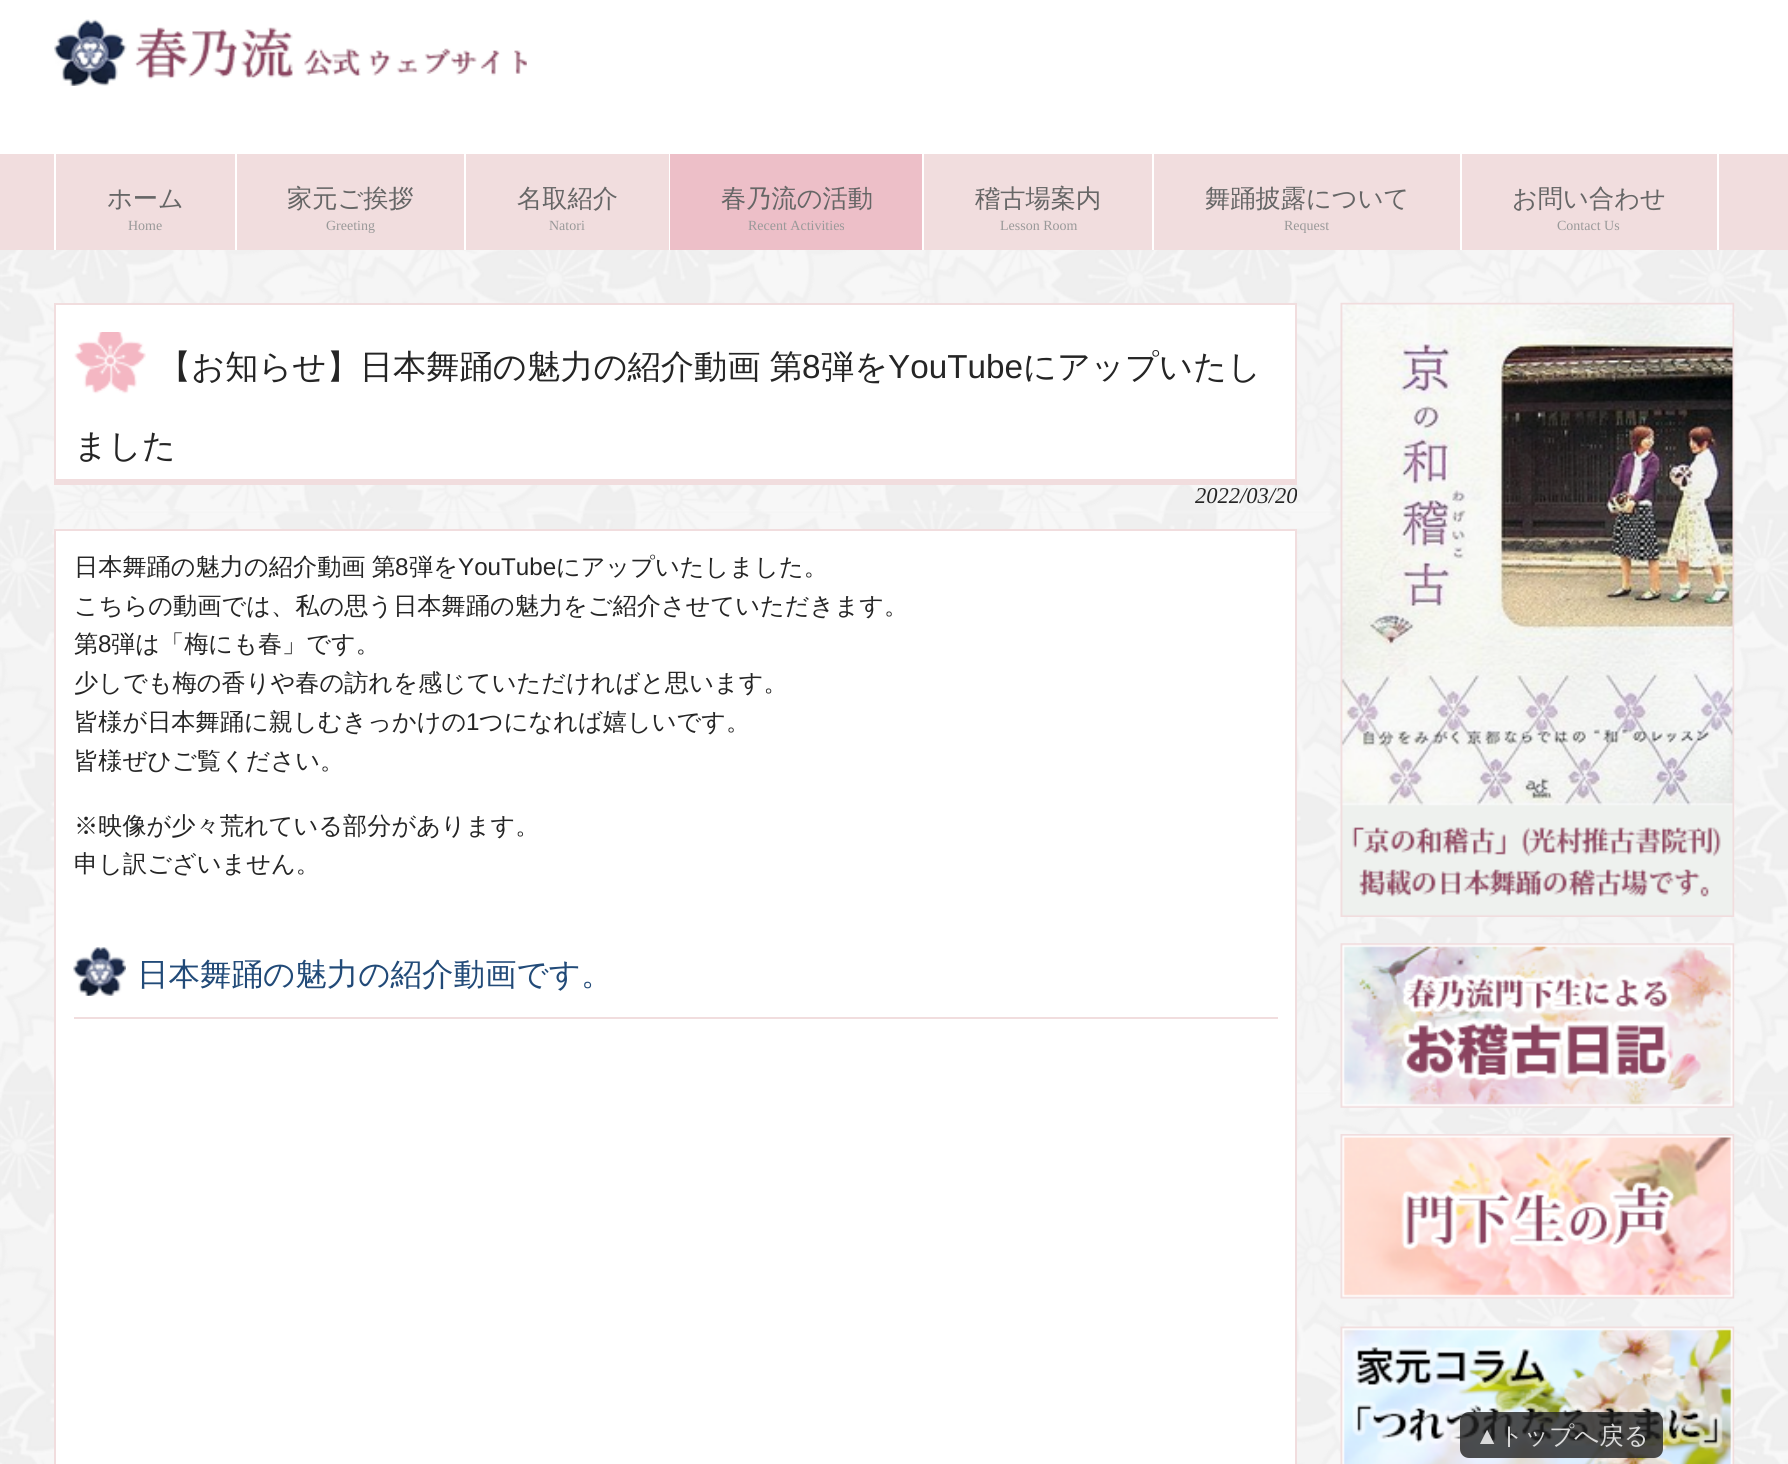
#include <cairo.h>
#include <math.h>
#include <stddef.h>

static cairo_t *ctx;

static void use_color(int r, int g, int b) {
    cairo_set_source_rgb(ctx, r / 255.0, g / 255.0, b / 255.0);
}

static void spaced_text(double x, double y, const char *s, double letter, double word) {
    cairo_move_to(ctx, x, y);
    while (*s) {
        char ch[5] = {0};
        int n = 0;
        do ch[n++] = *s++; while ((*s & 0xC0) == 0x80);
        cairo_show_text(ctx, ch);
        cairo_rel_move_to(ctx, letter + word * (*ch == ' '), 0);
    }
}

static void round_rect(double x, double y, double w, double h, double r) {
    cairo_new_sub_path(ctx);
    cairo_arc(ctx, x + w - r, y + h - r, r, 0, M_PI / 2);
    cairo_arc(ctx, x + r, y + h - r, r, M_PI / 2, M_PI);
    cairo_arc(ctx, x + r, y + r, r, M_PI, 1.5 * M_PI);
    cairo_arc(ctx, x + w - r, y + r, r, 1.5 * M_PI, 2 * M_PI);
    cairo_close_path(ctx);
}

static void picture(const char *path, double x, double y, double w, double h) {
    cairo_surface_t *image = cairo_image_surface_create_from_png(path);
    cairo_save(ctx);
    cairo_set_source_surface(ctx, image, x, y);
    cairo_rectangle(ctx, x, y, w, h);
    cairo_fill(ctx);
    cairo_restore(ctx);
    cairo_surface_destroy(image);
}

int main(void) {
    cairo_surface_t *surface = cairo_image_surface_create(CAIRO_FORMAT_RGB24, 1788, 1464);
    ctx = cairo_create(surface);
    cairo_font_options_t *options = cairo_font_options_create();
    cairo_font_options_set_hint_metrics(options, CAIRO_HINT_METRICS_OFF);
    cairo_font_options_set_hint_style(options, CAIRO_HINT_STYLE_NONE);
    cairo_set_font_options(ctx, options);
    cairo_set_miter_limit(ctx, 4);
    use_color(244, 244, 244);
    cairo_paint(ctx);
    picture("img1.png", 0, 250, 1788, 1214);
    use_color(255, 255, 255);
    cairo_rectangle(ctx, 0, 0, 1788, 154);
    cairo_fill(ctx);
    picture("img2.png", 54, 19, 473, 67);
    use_color(241, 221, 222);
    cairo_rectangle(ctx, 0, 154, 1788, 96);
    cairo_fill(ctx);
    use_color(255, 255, 255);
    cairo_rectangle(ctx, 235, 154, 2, 96);
    cairo_fill(ctx);
    cairo_rectangle(ctx, 54, 154, 2, 96);
    cairo_fill(ctx);
    cairo_select_font_face(ctx, "WenQuanYi Zen Hei Medium", CAIRO_FONT_SLANT_NORMAL, CAIRO_FONT_WEIGHT_NORMAL);
    cairo_set_font_size(ctx, 25.25);
    use_color(102, 102, 102);
    cairo_move_to(ctx, 107, 207);
    cairo_show_text(ctx, "ホーム");
    cairo_select_font_face(ctx, "Liberation Serif", CAIRO_FONT_SLANT_NORMAL, CAIRO_FONT_WEIGHT_NORMAL);
    cairo_set_font_size(ctx, 14);
    use_color(153, 153, 153);
    cairo_move_to(ctx, 128, 230);
    cairo_show_text(ctx, "Home");
    use_color(255, 255, 255);
    cairo_rectangle(ctx, 464, 154, 2, 96);
    cairo_fill(ctx);
    cairo_select_font_face(ctx, "WenQuanYi Zen Hei Medium", CAIRO_FONT_SLANT_NORMAL, CAIRO_FONT_WEIGHT_NORMAL);
    cairo_set_font_size(ctx, 25.25);
    use_color(102, 102, 102);
    cairo_move_to(ctx, 287, 207);
    cairo_show_text(ctx, "家元ご挨拶");
    cairo_select_font_face(ctx, "Liberation Serif", CAIRO_FONT_SLANT_NORMAL, CAIRO_FONT_WEIGHT_NORMAL);
    cairo_set_font_size(ctx, 14);
    use_color(153, 153, 153);
    cairo_move_to(ctx, 326, 230);
    cairo_show_text(ctx, "Greeting");
    use_color(255, 255, 255);
    cairo_rectangle(ctx, 669, 154, 1, 96);
    cairo_fill(ctx);
    cairo_select_font_face(ctx, "WenQuanYi Zen Hei Medium", CAIRO_FONT_SLANT_NORMAL, CAIRO_FONT_WEIGHT_NORMAL);
    cairo_set_font_size(ctx, 25.25);
    use_color(102, 102, 102);
    cairo_move_to(ctx, 517, 207);
    cairo_show_text(ctx, "名取紹介");
    cairo_select_font_face(ctx, "Liberation Serif", CAIRO_FONT_SLANT_NORMAL, CAIRO_FONT_WEIGHT_NORMAL);
    cairo_set_font_size(ctx, 14);
    use_color(153, 153, 153);
    cairo_move_to(ctx, 549, 230);
    cairo_show_text(ctx, "Natori");
    use_color(255, 255, 255);
    cairo_rectangle(ctx, 922, 154, 2, 96);
    cairo_fill(ctx);
    use_color(237, 191, 200);
    cairo_rectangle(ctx, 670, 154, 252, 96);
    cairo_fill(ctx);
    cairo_select_font_face(ctx, "WenQuanYi Zen Hei Medium", CAIRO_FONT_SLANT_NORMAL, CAIRO_FONT_WEIGHT_NORMAL);
    cairo_set_font_size(ctx, 25.25);
    use_color(102, 102, 102);
    cairo_move_to(ctx, 721, 207);
    cairo_show_text(ctx, "春乃流の活動");
    cairo_select_font_face(ctx, "Liberation Serif", CAIRO_FONT_SLANT_NORMAL, CAIRO_FONT_WEIGHT_NORMAL);
    cairo_set_font_size(ctx, 14);
    use_color(153, 153, 153);
    cairo_move_to(ctx, 748, 230);
    cairo_show_text(ctx, "Recent Activities");
    use_color(255, 255, 255);
    cairo_rectangle(ctx, 1152, 154, 2, 96);
    cairo_fill(ctx);
    cairo_select_font_face(ctx, "WenQuanYi Zen Hei Medium", CAIRO_FONT_SLANT_NORMAL, CAIRO_FONT_WEIGHT_NORMAL);
    cairo_set_font_size(ctx, 25.25);
    use_color(102, 102, 102);
    cairo_move_to(ctx, 975, 207);
    cairo_show_text(ctx, "稽古場案内");
    cairo_select_font_face(ctx, "Liberation Serif", CAIRO_FONT_SLANT_NORMAL, CAIRO_FONT_WEIGHT_NORMAL);
    cairo_set_font_size(ctx, 14);
    use_color(153, 153, 153);
    cairo_move_to(ctx, 1000, 230);
    cairo_show_text(ctx, "Lesson Room");
    use_color(255, 255, 255);
    cairo_rectangle(ctx, 1460, 154, 2, 96);
    cairo_fill(ctx);
    cairo_select_font_face(ctx, "WenQuanYi Zen Hei Medium", CAIRO_FONT_SLANT_NORMAL, CAIRO_FONT_WEIGHT_NORMAL);
    cairo_set_font_size(ctx, 25.25);
    use_color(102, 102, 102);
    cairo_move_to(ctx, 1205, 207);
    cairo_show_text(ctx, "舞踊披露について");
    cairo_select_font_face(ctx, "Liberation Serif", CAIRO_FONT_SLANT_NORMAL, CAIRO_FONT_WEIGHT_NORMAL);
    cairo_set_font_size(ctx, 14);
    use_color(153, 153, 153);
    cairo_move_to(ctx, 1284, 230);
    cairo_show_text(ctx, "Request");
    use_color(255, 255, 255);
    cairo_rectangle(ctx, 1717, 154, 2, 96);
    cairo_fill(ctx);
    cairo_select_font_face(ctx, "WenQuanYi Zen Hei Medium", CAIRO_FONT_SLANT_NORMAL, CAIRO_FONT_WEIGHT_NORMAL);
    cairo_set_font_size(ctx, 25.25);
    use_color(102, 102, 102);
    cairo_move_to(ctx, 1512, 207);
    cairo_show_text(ctx, "お問い合わせ");
    cairo_select_font_face(ctx, "Liberation Serif", CAIRO_FONT_SLANT_NORMAL, CAIRO_FONT_WEIGHT_NORMAL);
    cairo_set_font_size(ctx, 14);
    use_color(153, 153, 153);
    cairo_move_to(ctx, 1557, 230);
    cairo_show_text(ctx, "Contact Us");
    use_color(255, 255, 255);
    cairo_rectangle(ctx, 56, 305, 1239, 174);
    cairo_fill(ctx);
    use_color(241, 221, 222);
    cairo_rectangle(ctx, 54, 479, 1243, 6);
    cairo_fill(ctx);
    cairo_rectangle(ctx, 54, 303, 1243, 2);
    cairo_fill(ctx);
    cairo_rectangle(ctx, 1295, 303, 2, 182);
    cairo_fill(ctx);
    cairo_rectangle(ctx, 54, 303, 2, 182);
    cairo_fill(ctx);
    picture("img3.png", 74, 332, 72, 62);
    cairo_select_font_face(ctx, "WenQuanYi Zen Hei Medium", CAIRO_FONT_SLANT_NORMAL, CAIRO_FONT_WEIGHT_NORMAL);
    cairo_set_font_size(ctx, 33.25);
    use_color(37, 37, 37);
    spaced_text(158, 378, "【お知らせ】日本舞踊の魅力の紹介動画 第", 0, -1);
    cairo_select_font_face(ctx, "Liberation Sans", CAIRO_FONT_SLANT_NORMAL, CAIRO_FONT_WEIGHT_NORMAL);
    cairo_move_to(ctx, 802, 378);
    cairo_show_text(ctx, "8");
    cairo_select_font_face(ctx, "WenQuanYi Zen Hei Medium", CAIRO_FONT_SLANT_NORMAL, CAIRO_FONT_WEIGHT_NORMAL);
    cairo_move_to(ctx, 821, 378);
    cairo_show_text(ctx, "弾を");
    cairo_select_font_face(ctx, "Liberation Sans", CAIRO_FONT_SLANT_NORMAL, CAIRO_FONT_WEIGHT_NORMAL);
    cairo_move_to(ctx, 888, 378);
    cairo_show_text(ctx, "YouTube");
    cairo_select_font_face(ctx, "WenQuanYi Zen Hei Medium", CAIRO_FONT_SLANT_NORMAL, CAIRO_FONT_WEIGHT_NORMAL);
    cairo_move_to(ctx, 1023, 378);
    cairo_show_text(ctx, "にアップいたし");
    cairo_move_to(ctx, 74, 457);
    cairo_show_text(ctx, "ました");
    cairo_select_font_face(ctx, "Liberation Serif", CAIRO_FONT_SLANT_ITALIC, CAIRO_FONT_WEIGHT_NORMAL);
    cairo_set_font_size(ctx, 22.5);
    cairo_move_to(ctx, 1195, 503);
    cairo_show_text(ctx, "2022/03/20");
    use_color(255, 255, 255);
    cairo_rectangle(ctx, 55, 530, 1241, 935);
    cairo_fill_preserve(ctx);
    use_color(241, 221, 222);
    cairo_stroke(ctx);
    cairo_select_font_face(ctx, "WenQuanYi Zen Hei Medium", CAIRO_FONT_SLANT_NORMAL, CAIRO_FONT_WEIGHT_NORMAL);
    cairo_set_font_size(ctx, 24.2);
    use_color(37, 37, 37);
    spaced_text(74, 575, "日本舞踊の魅力の紹介動画 第", 0, -1);
    cairo_select_font_face(ctx, "Liberation Sans", CAIRO_FONT_SLANT_NORMAL, CAIRO_FONT_WEIGHT_NORMAL);
    cairo_move_to(ctx, 395, 575);
    cairo_show_text(ctx, "8");
    cairo_select_font_face(ctx, "WenQuanYi Zen Hei Medium", CAIRO_FONT_SLANT_NORMAL, CAIRO_FONT_WEIGHT_NORMAL);
    cairo_move_to(ctx, 409, 575);
    cairo_show_text(ctx, "弾を");
    cairo_select_font_face(ctx, "Liberation Sans", CAIRO_FONT_SLANT_NORMAL, CAIRO_FONT_WEIGHT_NORMAL);
    cairo_move_to(ctx, 458, 575);
    cairo_show_text(ctx, "YouTube");
    cairo_select_font_face(ctx, "WenQuanYi Zen Hei Medium", CAIRO_FONT_SLANT_NORMAL, CAIRO_FONT_WEIGHT_NORMAL);
    cairo_move_to(ctx, 556, 575);
    cairo_show_text(ctx, "にアップいたしました。");
    cairo_move_to(ctx, 74, 614);
    cairo_show_text(ctx, "こちらの動画では、私の思う日本舞踊の魅力をご紹介させていただきます。");
    cairo_move_to(ctx, 74, 652);
    cairo_show_text(ctx, "第");
    cairo_select_font_face(ctx, "Liberation Sans", CAIRO_FONT_SLANT_NORMAL, CAIRO_FONT_WEIGHT_NORMAL);
    cairo_move_to(ctx, 98, 652);
    cairo_show_text(ctx, "8");
    cairo_select_font_face(ctx, "WenQuanYi Zen Hei Medium", CAIRO_FONT_SLANT_NORMAL, CAIRO_FONT_WEIGHT_NORMAL);
    cairo_move_to(ctx, 111, 652);
    cairo_show_text(ctx, "弾は「梅にも春」です。");
    cairo_move_to(ctx, 74, 691);
    cairo_show_text(ctx, "少しでも梅の香りや春の訪れを感じていただければと思います。");
    cairo_move_to(ctx, 74, 730);
    cairo_show_text(ctx, "皆様が日本舞踊に親しむきっかけの");
    cairo_select_font_face(ctx, "Liberation Sans", CAIRO_FONT_SLANT_NORMAL, CAIRO_FONT_WEIGHT_NORMAL);
    cairo_move_to(ctx, 466, 730);
    cairo_show_text(ctx, "1");
    cairo_select_font_face(ctx, "WenQuanYi Zen Hei Medium", CAIRO_FONT_SLANT_NORMAL, CAIRO_FONT_WEIGHT_NORMAL);
    cairo_move_to(ctx, 479, 730);
    cairo_show_text(ctx, "つになれば嬉しいです。");
    cairo_move_to(ctx, 74, 769);
    cairo_show_text(ctx, "皆様ぜひご覧ください。");
    cairo_move_to(ctx, 74, 834);
    cairo_show_text(ctx, "※映像が少々荒れている部分があります。");
    cairo_move_to(ctx, 74, 872);
    cairo_show_text(ctx, "申し訳ございません。");
    use_color(241, 221, 222);
    cairo_rectangle(ctx, 74, 1017, 1204, 2);
    cairo_fill(ctx);
    picture("img4.png", 73, 947, 53, 49);
    cairo_set_font_size(ctx, 31.5);
    use_color(33, 74, 120);
    cairo_move_to(ctx, 137, 985);
    cairo_show_text(ctx, "日本舞踊の魅力の紹介動画です。");
    picture("img5.png", 1340, 302, 395, 615);
    picture("img6.png", 1340, 943, 395, 165);
    picture("img7.png", 1340, 1134, 395, 165);
    picture("img8.png", 1340, 1326, 395, 138);
    cairo_set_source_rgba(ctx, 0.133, 0.133, 0.133, 0.8);
    round_rect(1460, 1412, 203, 46, 9);
    cairo_fill(ctx);
    cairo_select_font_face(ctx, "Liberation Sans", CAIRO_FONT_SLANT_NORMAL, CAIRO_FONT_WEIGHT_NORMAL);
    cairo_set_font_size(ctx, 24.5);
    use_color(218, 218, 218);
    cairo_move_to(ctx, 1475, 1444);
    cairo_show_text(ctx, "▲");
    cairo_select_font_face(ctx, "WenQuanYi Zen Hei Medium", CAIRO_FONT_SLANT_NORMAL, CAIRO_FONT_WEIGHT_NORMAL);
    cairo_move_to(ctx, 1499, 1444);
    cairo_show_text(ctx, "トップへ戻る");
    cairo_surface_write_to_png(surface, "result.png");
    cairo_font_options_destroy(options);
    cairo_destroy(ctx);
    cairo_surface_destroy(surface);
    return 0;
}
